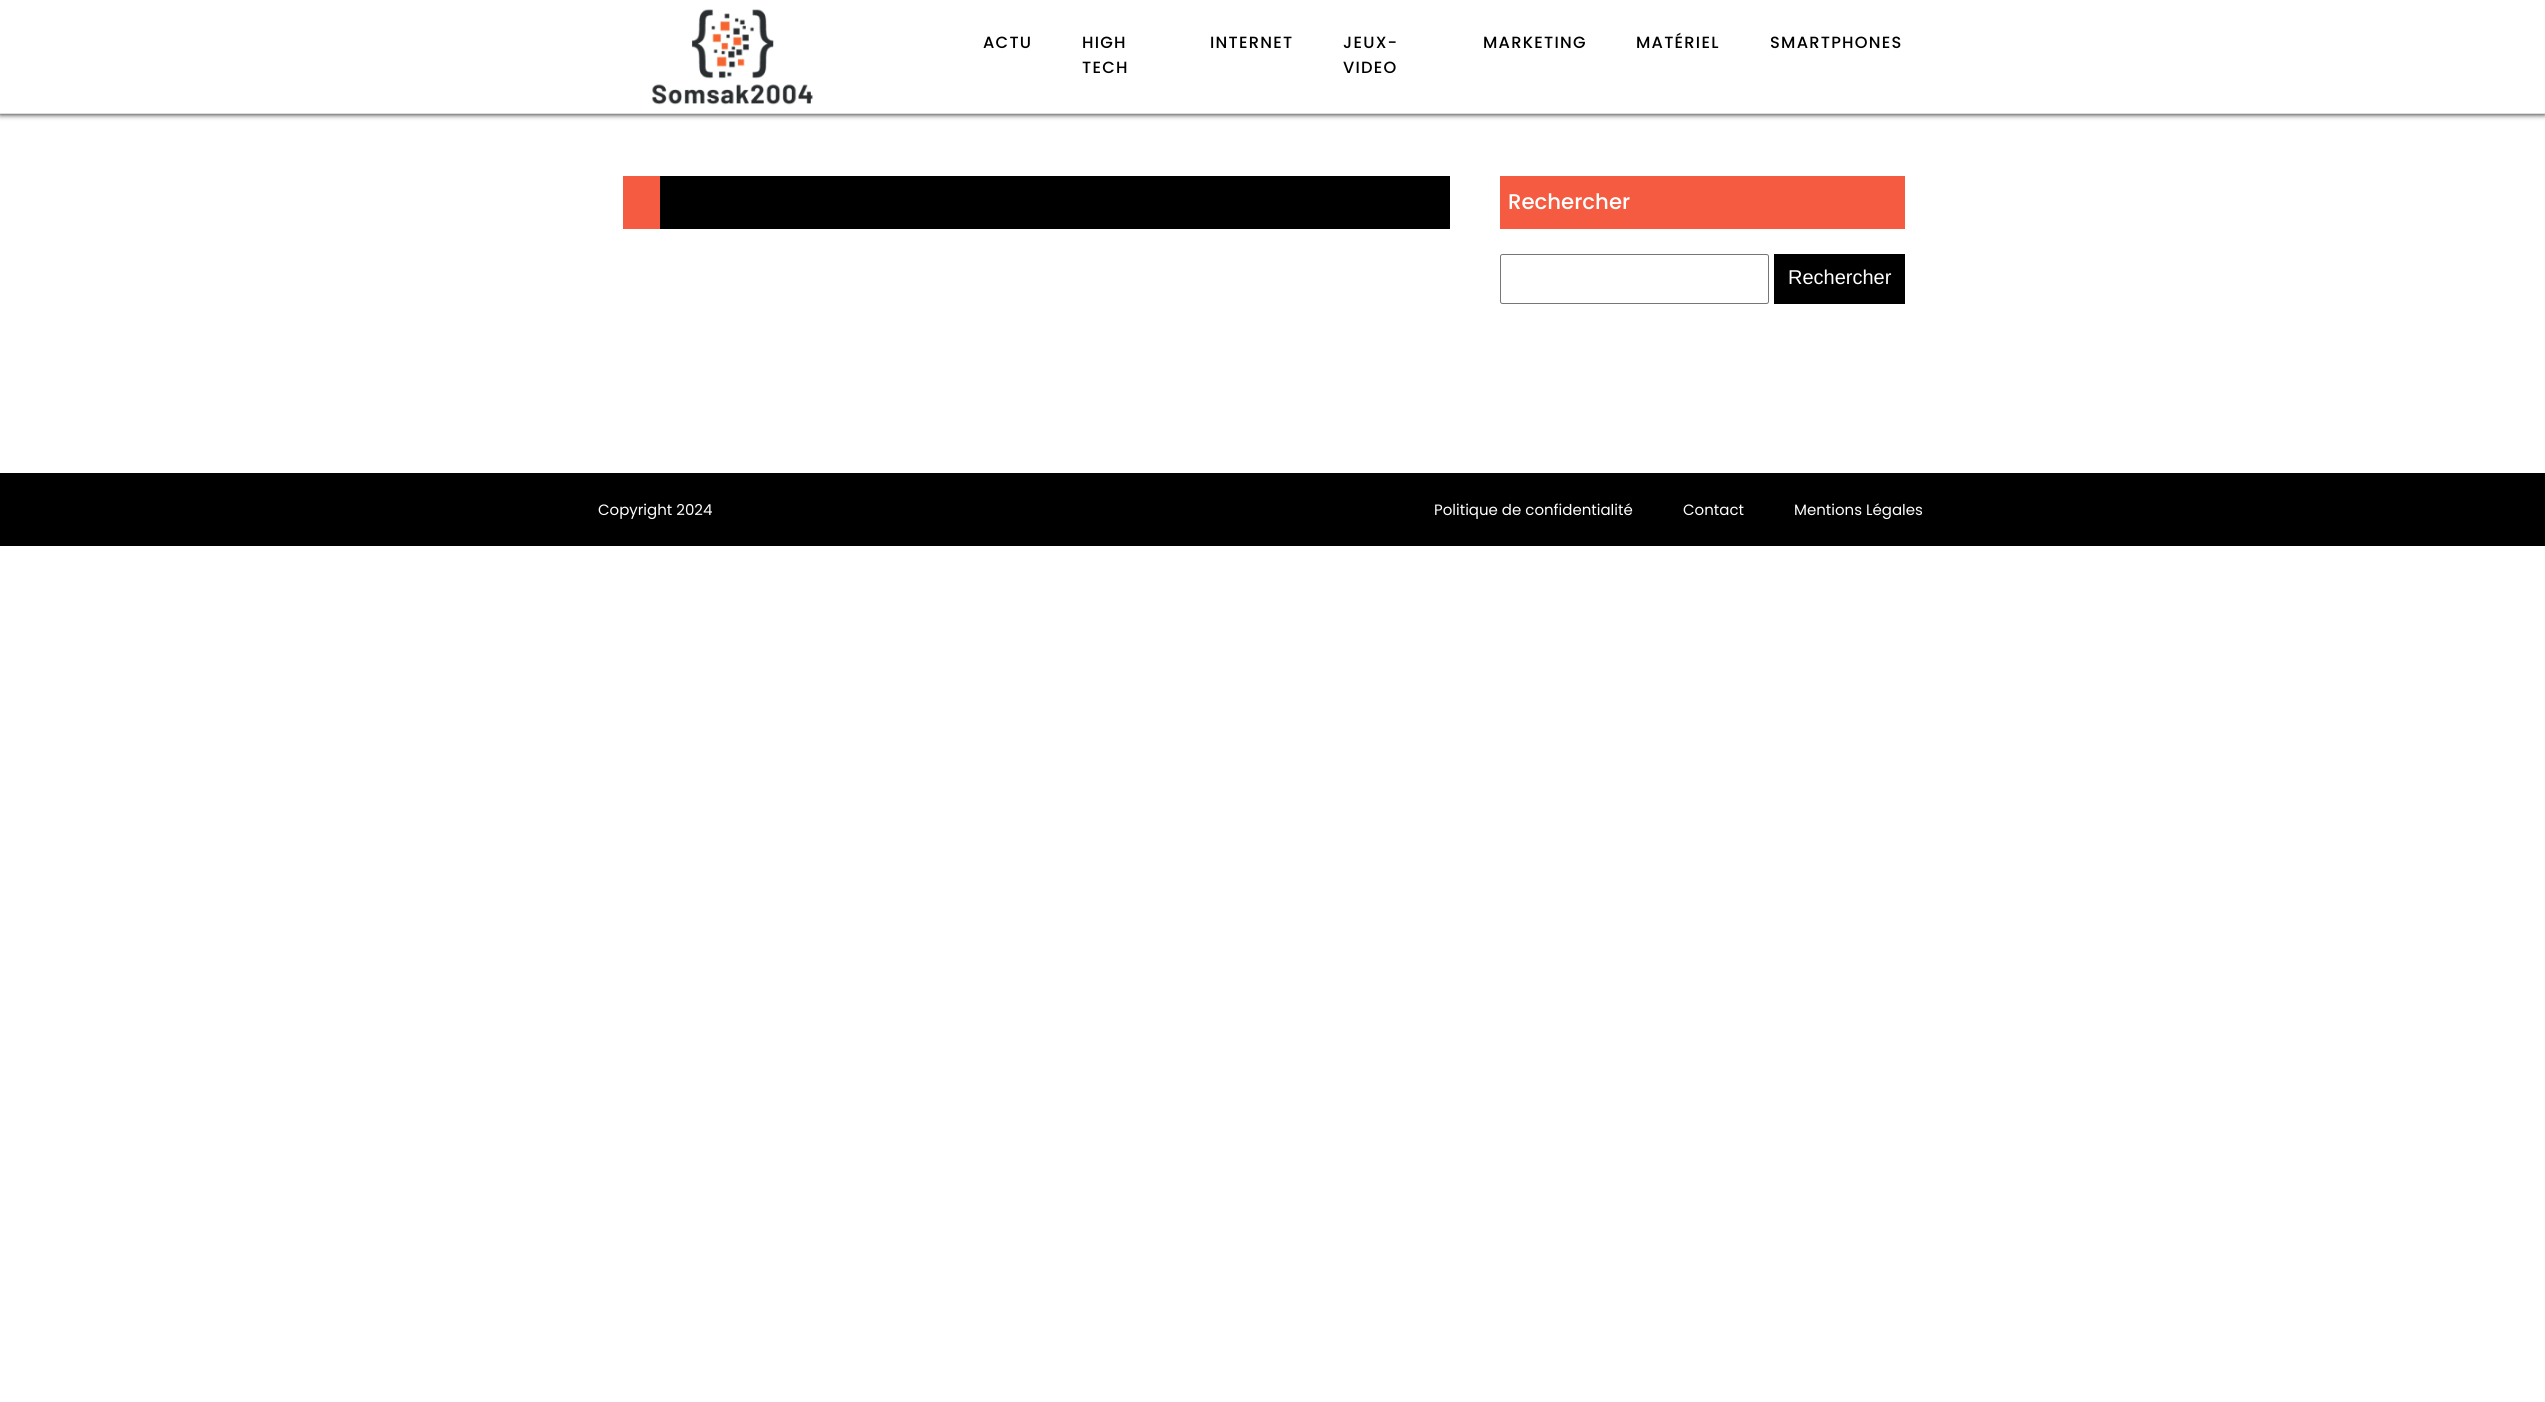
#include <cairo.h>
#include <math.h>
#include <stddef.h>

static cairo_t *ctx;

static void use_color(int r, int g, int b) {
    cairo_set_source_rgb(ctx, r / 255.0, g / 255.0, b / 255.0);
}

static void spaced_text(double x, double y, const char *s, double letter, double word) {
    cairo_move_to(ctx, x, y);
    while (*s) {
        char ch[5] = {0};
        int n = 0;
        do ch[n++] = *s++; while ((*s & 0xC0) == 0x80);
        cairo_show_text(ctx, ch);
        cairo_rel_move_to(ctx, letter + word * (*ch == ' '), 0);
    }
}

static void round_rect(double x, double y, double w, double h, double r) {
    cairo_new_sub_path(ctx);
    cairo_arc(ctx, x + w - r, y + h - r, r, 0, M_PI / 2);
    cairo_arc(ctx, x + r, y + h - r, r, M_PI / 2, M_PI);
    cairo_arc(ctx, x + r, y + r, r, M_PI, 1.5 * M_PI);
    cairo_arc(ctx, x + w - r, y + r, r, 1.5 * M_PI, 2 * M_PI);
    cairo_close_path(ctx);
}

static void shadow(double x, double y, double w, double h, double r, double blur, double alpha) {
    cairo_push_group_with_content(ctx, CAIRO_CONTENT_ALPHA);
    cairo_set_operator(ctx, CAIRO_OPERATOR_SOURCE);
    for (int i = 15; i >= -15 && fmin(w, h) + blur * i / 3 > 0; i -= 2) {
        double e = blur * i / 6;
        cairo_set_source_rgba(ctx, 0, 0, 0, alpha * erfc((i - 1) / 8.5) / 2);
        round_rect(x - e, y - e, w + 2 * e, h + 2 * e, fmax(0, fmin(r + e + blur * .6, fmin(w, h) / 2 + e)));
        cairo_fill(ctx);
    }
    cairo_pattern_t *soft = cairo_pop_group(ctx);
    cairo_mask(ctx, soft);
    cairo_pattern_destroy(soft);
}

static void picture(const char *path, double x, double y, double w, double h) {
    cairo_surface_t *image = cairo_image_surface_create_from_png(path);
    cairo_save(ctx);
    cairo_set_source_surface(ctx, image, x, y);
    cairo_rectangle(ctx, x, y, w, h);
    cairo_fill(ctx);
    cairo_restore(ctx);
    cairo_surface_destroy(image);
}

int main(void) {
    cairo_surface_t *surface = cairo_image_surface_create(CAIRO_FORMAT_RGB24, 2545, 1402);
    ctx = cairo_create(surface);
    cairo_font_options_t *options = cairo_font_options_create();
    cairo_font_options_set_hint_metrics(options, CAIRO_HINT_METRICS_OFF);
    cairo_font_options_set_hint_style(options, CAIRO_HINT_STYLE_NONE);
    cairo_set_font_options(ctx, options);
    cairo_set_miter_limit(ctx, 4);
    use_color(255, 255, 255);
    cairo_paint(ctx);
    use_color(0, 0, 0);
    shadow(0, 0, 2545, 114, 0, 3, 1);
    use_color(255, 255, 255);
    cairo_rectangle(ctx, 0, 0, 2545, 113);
    cairo_fill(ctx);
    use_color(221, 221, 221);
    cairo_rectangle(ctx, 0, 113, 2545, 1);
    cairo_fill(ctx);
    picture("img1.png", 651, 9, 162, 96);
    cairo_select_font_face(ctx, "Poppins Medium", CAIRO_FONT_SLANT_NORMAL, CAIRO_FONT_WEIGHT_NORMAL);
    cairo_set_font_size(ctx, 16.25);
    use_color(0, 0, 0);
    spaced_text(983, 48, "ACTU", 1.25, 0);
    spaced_text(1082, 48, "HIGH", 1.25, 0);
    spaced_text(1082, 73, "TECH", 1.25, 0);
    spaced_text(1210, 48, "INTERNET", 1.25, 0);
    spaced_text(1343, 48, "JEUX-", 1.25, 0);
    spaced_text(1343, 73, "VIDEO", 1.25, 0);
    spaced_text(1483, 48, "MARKETING", 1.25, 0);
    spaced_text(1636, 48, "MATÉRIEL", 1.25, 0);
    spaced_text(1770, 48, "SMARTPHONES", 1.25, 0);
    cairo_rectangle(ctx, 660, 176, 790, 53);
    cairo_fill(ctx);
    use_color(245, 91, 64);
    cairo_rectangle(ctx, 623, 176, 37, 53);
    cairo_fill(ctx);
    cairo_rectangle(ctx, 1500, 176, 405, 53);
    cairo_fill(ctx);
    cairo_set_font_size(ctx, 21.25);
    use_color(255, 255, 255);
    cairo_move_to(ctx, 1508, 209);
    cairo_show_text(ctx, "Rechercher");
    round_rect(1500.5, 254.5, 268, 49, 2);
    use_color(118, 118, 118);
    cairo_set_line_width(ctx, 1);
    cairo_stroke(ctx);
    use_color(0, 0, 0);
    cairo_rectangle(ctx, 1774, 254, 131, 50);
    cairo_fill(ctx);
    cairo_select_font_face(ctx, "Liberation Sans", CAIRO_FONT_SLANT_NORMAL, CAIRO_FONT_WEIGHT_NORMAL);
    cairo_set_font_size(ctx, 20);
    use_color(255, 255, 255);
    cairo_move_to(ctx, 1788, 284);
    cairo_show_text(ctx, "Rechercher");
    use_color(0, 0, 0);
    cairo_rectangle(ctx, 0, 473, 2545, 73);
    cairo_fill(ctx);
    cairo_select_font_face(ctx, "Poppins", CAIRO_FONT_SLANT_NORMAL, CAIRO_FONT_WEIGHT_NORMAL);
    cairo_set_font_size(ctx, 15);
    use_color(255, 255, 255);
    cairo_move_to(ctx, 598, 515);
    cairo_show_text(ctx, "Copyright 2024");
    cairo_move_to(ctx, 1434, 515);
    cairo_show_text(ctx, "Politique de confidentialité");
    cairo_move_to(ctx, 1683, 515);
    cairo_show_text(ctx, "Contact");
    cairo_move_to(ctx, 1794, 515);
    cairo_show_text(ctx, "Mentions Légales");
    cairo_surface_write_to_png(surface, "result.png");
    cairo_font_options_destroy(options);
    cairo_destroy(ctx);
    cairo_surface_destroy(surface);
    return 0;
}
